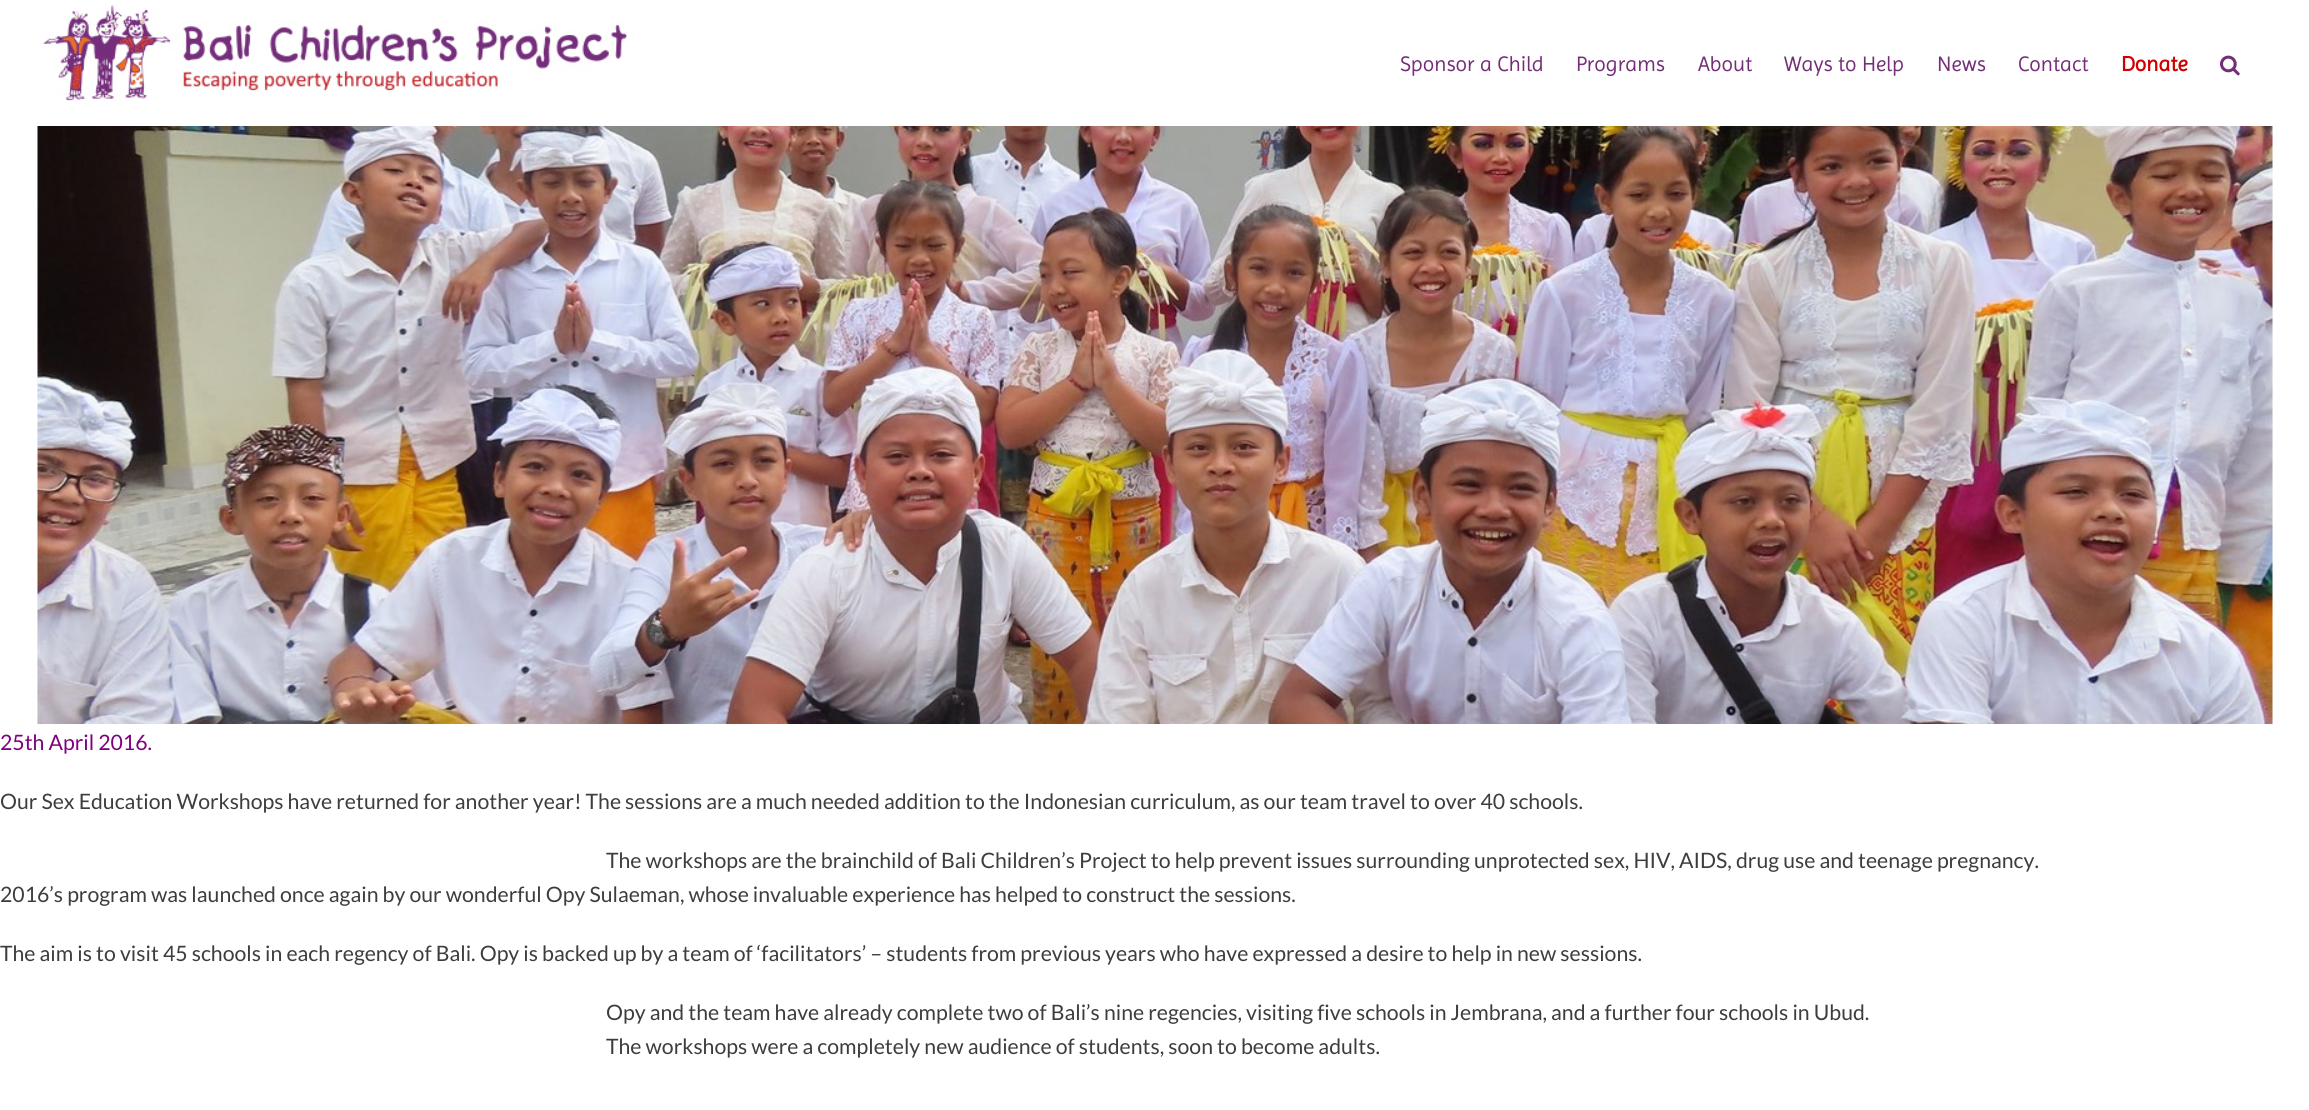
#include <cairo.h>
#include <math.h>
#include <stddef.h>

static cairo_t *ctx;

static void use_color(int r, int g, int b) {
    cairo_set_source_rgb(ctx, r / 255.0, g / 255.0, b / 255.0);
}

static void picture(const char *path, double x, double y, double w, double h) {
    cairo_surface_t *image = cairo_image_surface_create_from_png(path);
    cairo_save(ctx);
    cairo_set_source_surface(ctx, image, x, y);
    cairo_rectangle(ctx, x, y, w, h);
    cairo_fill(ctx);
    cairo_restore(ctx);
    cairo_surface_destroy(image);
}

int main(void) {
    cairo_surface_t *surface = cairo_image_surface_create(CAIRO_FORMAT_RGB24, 2309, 1110);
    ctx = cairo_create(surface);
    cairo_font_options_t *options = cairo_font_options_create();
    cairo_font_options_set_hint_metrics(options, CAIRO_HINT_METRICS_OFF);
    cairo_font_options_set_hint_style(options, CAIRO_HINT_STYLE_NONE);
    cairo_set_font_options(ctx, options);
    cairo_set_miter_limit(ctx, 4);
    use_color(255, 255, 255);
    cairo_paint(ctx);
    picture("img1.png", 40, 5, 587, 96);
    cairo_select_font_face(ctx, "Imprima", CAIRO_FONT_SLANT_NORMAL, CAIRO_FONT_WEIGHT_NORMAL);
    cairo_set_font_size(ctx, 21.25);
    use_color(116, 46, 121);
    cairo_move_to(ctx, 1400, 71);
    cairo_show_text(ctx, "Sponsor a Child");
    cairo_move_to(ctx, 1576, 71);
    cairo_show_text(ctx, "Programs");
    cairo_move_to(ctx, 1698, 71);
    cairo_show_text(ctx, "About");
    cairo_move_to(ctx, 1784, 71);
    cairo_show_text(ctx, "Ways to Help");
    cairo_move_to(ctx, 1937, 71);
    cairo_show_text(ctx, "News");
    cairo_move_to(ctx, 2018, 71);
    cairo_show_text(ctx, "Contact");
    cairo_select_font_face(ctx, "Imprima", CAIRO_FONT_SLANT_NORMAL, CAIRO_FONT_WEIGHT_BOLD);
    use_color(206, 0, 0);
    cairo_move_to(ctx, 2121, 71);
    cairo_show_text(ctx, "Donate");
    picture("img2.png", 2220, 55, 20, 21);
    picture("img3.png", 37, 126, 2236, 598);
    cairo_select_font_face(ctx, "Lato", CAIRO_FONT_SLANT_NORMAL, CAIRO_FONT_WEIGHT_NORMAL);
    use_color(128, 0, 128);
    cairo_move_to(ctx, 0, 750);
    cairo_show_text(ctx, "25th April 2016.");
    use_color(61, 61, 61);
    cairo_move_to(ctx, 0, 809);
    cairo_show_text(ctx, "Our Sex Education Workshops have returned for another year! The sessions are a much needed addition to the Indonesian curriculum, as our team travel to over 40 schools.");
    cairo_move_to(ctx, 606, 868);
    cairo_show_text(ctx, "The workshops are the brainchild of Bali Children’s Project to help prevent issues surrounding unprotected sex, HIV, AIDS, drug use and teenage pregnancy.");
    cairo_move_to(ctx, 0, 902);
    cairo_show_text(ctx, "2016’s program was launched once again by our wonderful Opy Sulaeman, whose invaluable experience has helped to construct the sessions.");
    cairo_move_to(ctx, 0, 961);
    cairo_show_text(ctx, "The aim is to visit 45 schools in each regency of Bali. Opy is backed up by a team of ‘facilitators’ – students from previous years who have expressed a desire to help in new sessions.");
    cairo_move_to(ctx, 606, 1020);
    cairo_show_text(ctx, "Opy and the team have already complete two of Bali’s nine regencies, visiting five schools in Jembrana, and a further four schools in Ubud.");
    cairo_move_to(ctx, 606, 1054);
    cairo_show_text(ctx, "The workshops were a completely new audience of students, soon to become adults.");
    cairo_surface_write_to_png(surface, "result.png");
    cairo_font_options_destroy(options);
    cairo_destroy(ctx);
    cairo_surface_destroy(surface);
    return 0;
}
